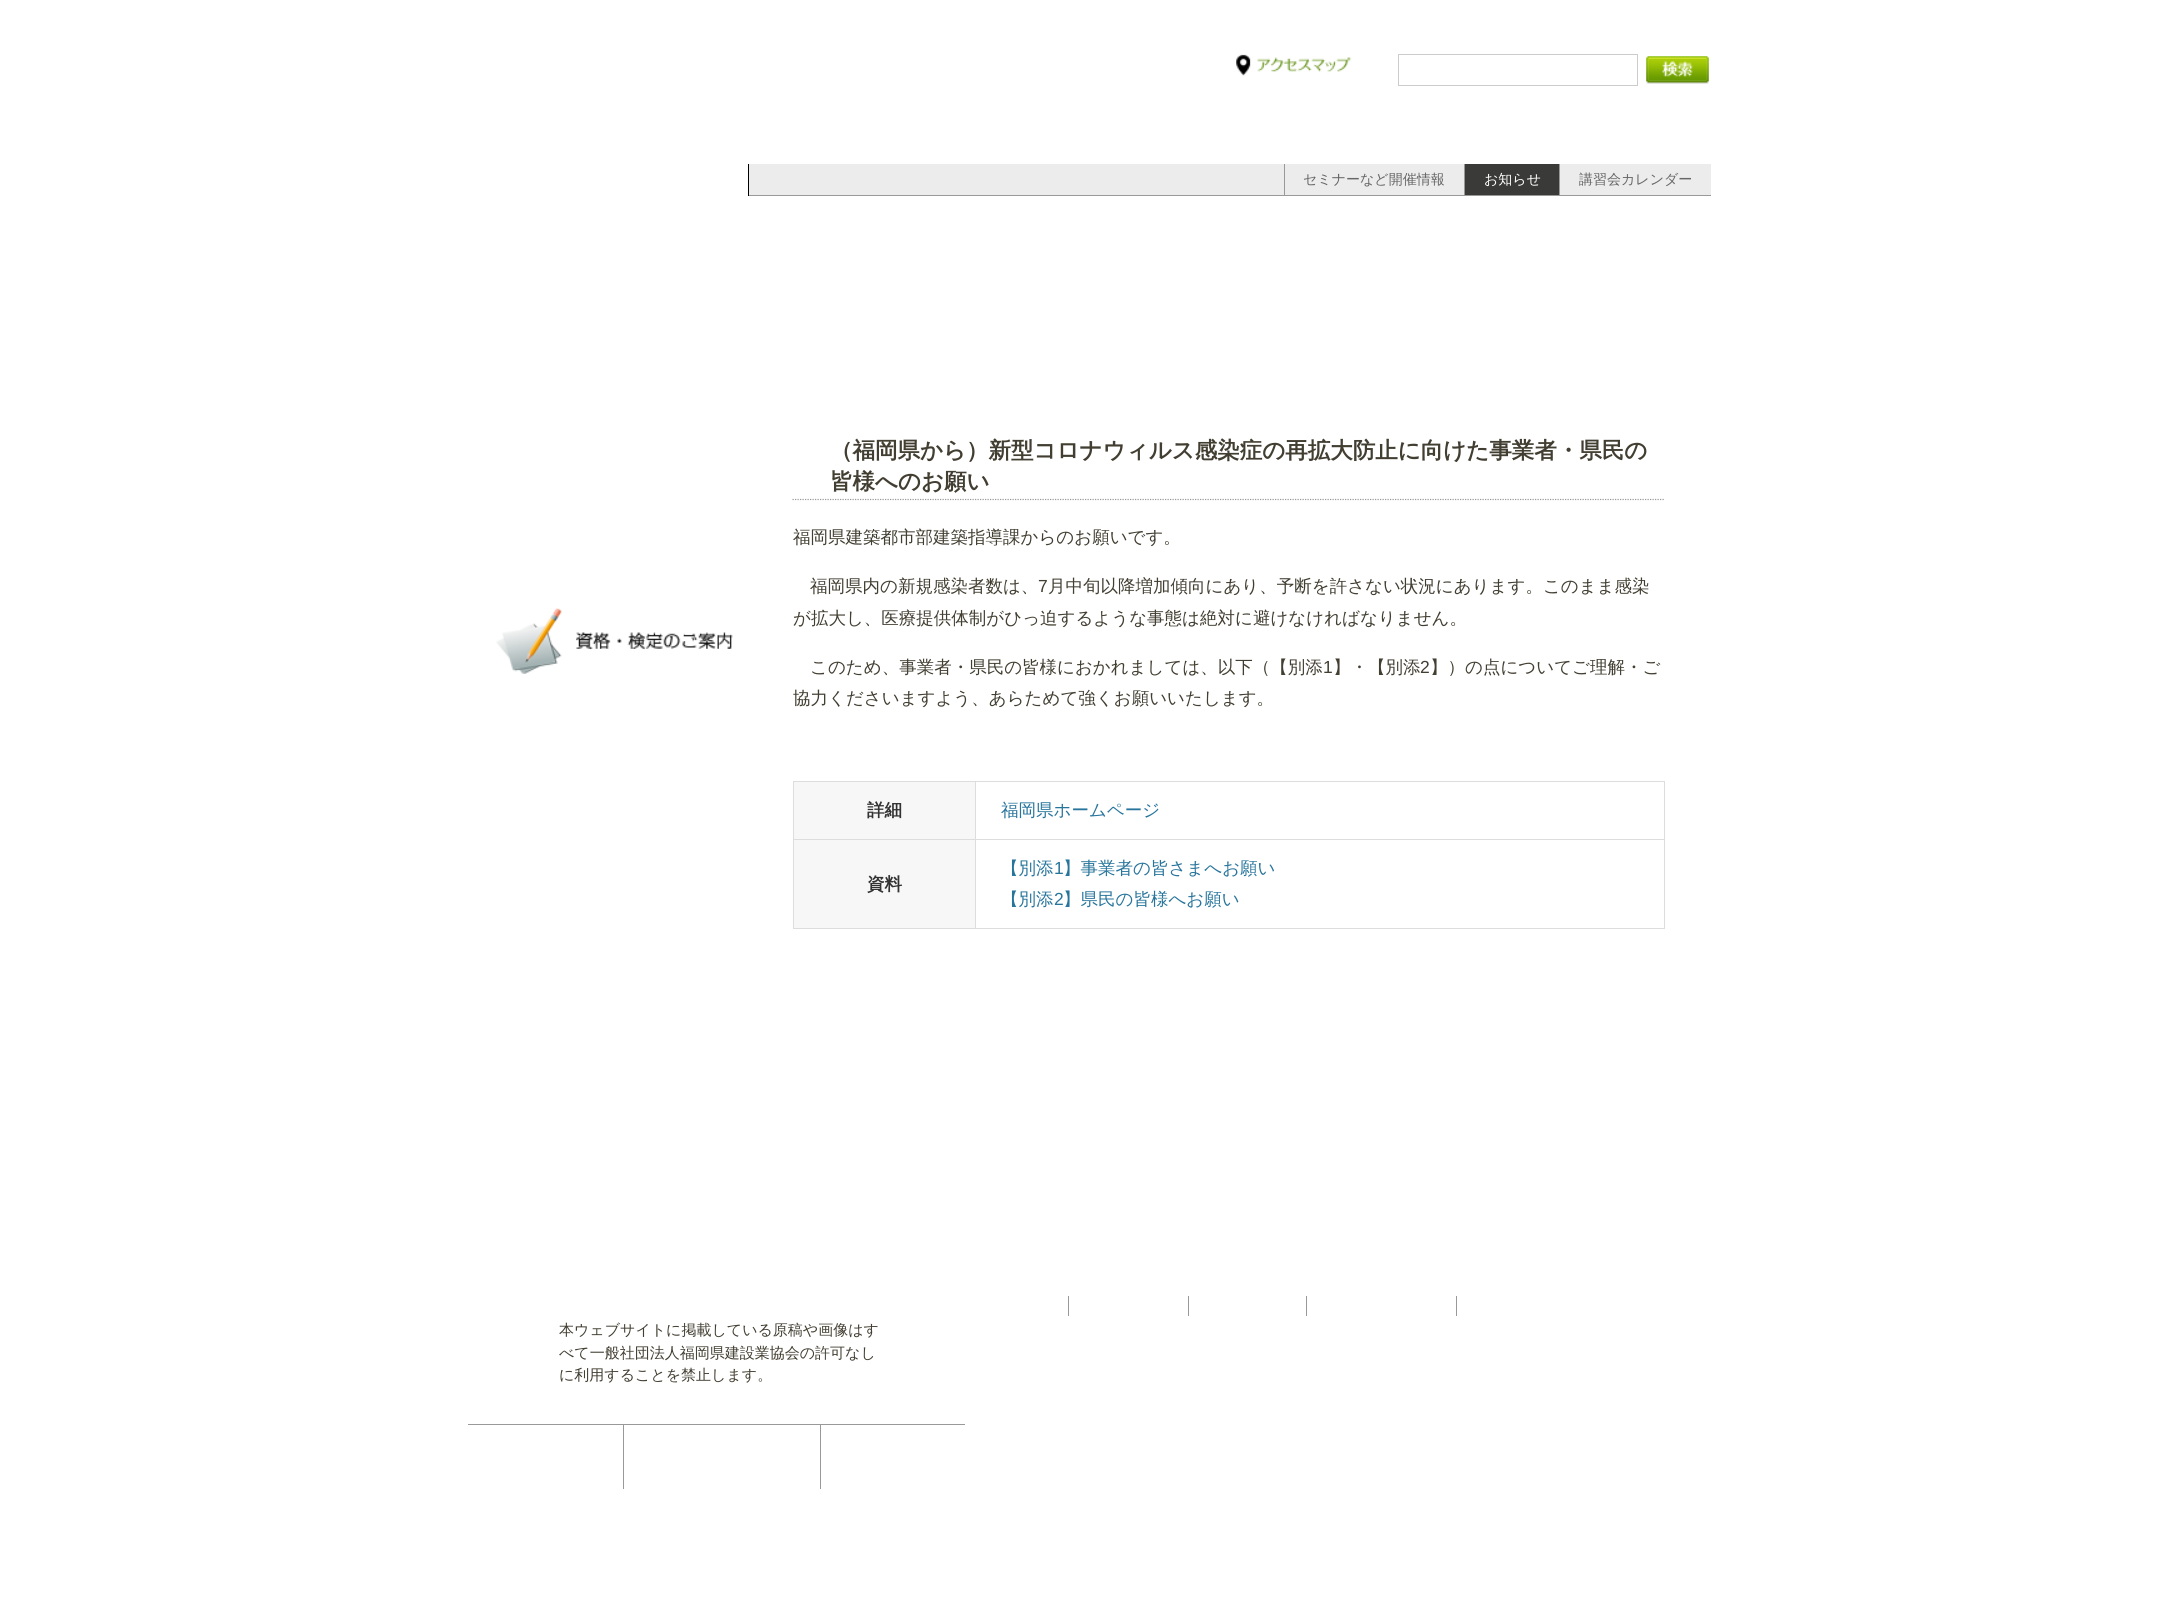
#include <cairo.h>
#include <math.h>
#include <stddef.h>

static cairo_t *ctx;

static void use_color(int r, int g, int b) {
    cairo_set_source_rgb(ctx, r / 255.0, g / 255.0, b / 255.0);
}

static void picture(const char *path, double x, double y, double w, double h) {
    cairo_surface_t *image = cairo_image_surface_create_from_png(path);
    cairo_save(ctx);
    cairo_set_source_surface(ctx, image, x, y);
    cairo_rectangle(ctx, x, y, w, h);
    cairo_fill(ctx);
    cairo_restore(ctx);
    cairo_surface_destroy(image);
}

int main(void) {
    cairo_surface_t *surface = cairo_image_surface_create(CAIRO_FORMAT_RGB24, 2177, 1608);
    ctx = cairo_create(surface);
    cairo_font_options_t *options = cairo_font_options_create();
    cairo_font_options_set_hint_metrics(options, CAIRO_HINT_METRICS_OFF);
    cairo_font_options_set_hint_style(options, CAIRO_HINT_STYLE_NONE);
    cairo_set_font_options(ctx, options);
    cairo_set_miter_limit(ctx, 4);
    use_color(255, 255, 255);
    cairo_paint(ctx);
    picture("img1.png", 1236, 54, 116, 22);
    cairo_rectangle(ctx, 1398.5, 54.5, 239, 31);
    use_color(204, 204, 204);
    cairo_set_line_width(ctx, 1);
    cairo_stroke(ctx);
    picture("img2.png", 1646, 56, 63, 28);
    picture("img3.png", 496, 608, 237, 66);
    use_color(236, 236, 236);
    cairo_rectangle(ctx, 749, 164, 962, 31);
    cairo_fill(ctx);
    use_color(153, 153, 153);
    cairo_rectangle(ctx, 748, 195, 963, 1);
    cairo_fill(ctx);
    use_color(0, 0, 0);
    cairo_rectangle(ctx, 748, 164, 1, 32);
    cairo_fill(ctx);
    use_color(153, 153, 153);
    cairo_rectangle(ctx, 1284, 164, 1, 31);
    cairo_fill(ctx);
    cairo_select_font_face(ctx, "WenQuanYi Zen Hei Medium", CAIRO_FONT_SLANT_NORMAL, CAIRO_FONT_WEIGHT_NORMAL);
    cairo_set_font_size(ctx, 14);
    use_color(102, 102, 102);
    cairo_move_to(ctx, 1303, 184);
    cairo_show_text(ctx, "セミナーなど開催情報");
    use_color(58, 59, 56);
    cairo_rectangle(ctx, 1465, 164, 94, 31);
    cairo_fill(ctx);
    use_color(153, 153, 153);
    cairo_rectangle(ctx, 1464, 164, 1, 31);
    cairo_fill(ctx);
    use_color(255, 255, 255);
    cairo_move_to(ctx, 1484, 184);
    cairo_show_text(ctx, "お知らせ");
    use_color(153, 153, 153);
    cairo_rectangle(ctx, 1559, 164, 1, 31);
    cairo_fill(ctx);
    use_color(102, 102, 102);
    cairo_move_to(ctx, 1579, 184);
    cairo_show_text(ctx, "講習会カレンダー");
    cairo_new_path(ctx);
    cairo_move_to(ctx, 792.5, 499.5);
    cairo_line_to(ctx, 1665, 499.5);
    use_color(153, 153, 153);
    cairo_set_line_width(ctx, 1.2);
    cairo_set_dash(ctx, (double[]){1.25, 1.25}, 2, 0);
    cairo_stroke(ctx);
    cairo_select_font_face(ctx, "WenQuanYi Zen Hei", CAIRO_FONT_SLANT_NORMAL, CAIRO_FONT_WEIGHT_BOLD);
    cairo_set_font_size(ctx, 22.5);
    use_color(66, 62, 49);
    cairo_move_to(ctx, 830, 458);
    cairo_show_text(ctx, "（福岡県から）新型コロナウィルス感染症の再拡大防止に向けた事業者・県民の");
    cairo_move_to(ctx, 830, 489);
    cairo_show_text(ctx, "皆様へのお願い");
    cairo_select_font_face(ctx, "WenQuanYi Zen Hei Medium", CAIRO_FONT_SLANT_NORMAL, CAIRO_FONT_WEIGHT_NORMAL);
    cairo_set_font_size(ctx, 17.5);
    cairo_move_to(ctx, 793, 543);
    cairo_show_text(ctx, "福岡県建築都市部建築指導課からのお願いです。");
    cairo_move_to(ctx, 810, 592);
    cairo_show_text(ctx, "福岡県内の新規感染者数は、");
    cairo_select_font_face(ctx, "Liberation Sans", CAIRO_FONT_SLANT_NORMAL, CAIRO_FONT_WEIGHT_NORMAL);
    cairo_move_to(ctx, 1038, 592);
    cairo_show_text(ctx, "7");
    cairo_select_font_face(ctx, "WenQuanYi Zen Hei Medium", CAIRO_FONT_SLANT_NORMAL, CAIRO_FONT_WEIGHT_NORMAL);
    cairo_move_to(ctx, 1048, 592);
    cairo_show_text(ctx, "月中旬以降増加傾向にあり、予断を許さない状況にあります。このまま感染");
    cairo_move_to(ctx, 793, 624);
    cairo_show_text(ctx, "が拡大し、医療提供体制がひっ迫するような事態は絶対に避けなければなりません。");
    cairo_move_to(ctx, 810, 673);
    cairo_show_text(ctx, "このため、事業者・県民の皆様におかれましては、以下（【別添");
    cairo_select_font_face(ctx, "Liberation Sans", CAIRO_FONT_SLANT_NORMAL, CAIRO_FONT_WEIGHT_NORMAL);
    cairo_move_to(ctx, 1323, 673);
    cairo_show_text(ctx, "1");
    cairo_select_font_face(ctx, "WenQuanYi Zen Hei Medium", CAIRO_FONT_SLANT_NORMAL, CAIRO_FONT_WEIGHT_NORMAL);
    cairo_move_to(ctx, 1333, 673);
    cairo_show_text(ctx, "】・【別添");
    cairo_select_font_face(ctx, "Liberation Sans", CAIRO_FONT_SLANT_NORMAL, CAIRO_FONT_WEIGHT_NORMAL);
    cairo_move_to(ctx, 1420, 673);
    cairo_show_text(ctx, "2");
    cairo_select_font_face(ctx, "WenQuanYi Zen Hei Medium", CAIRO_FONT_SLANT_NORMAL, CAIRO_FONT_WEIGHT_NORMAL);
    cairo_move_to(ctx, 1430, 673);
    cairo_show_text(ctx, "】）の点についてご理解・ご");
    cairo_move_to(ctx, 793, 704);
    cairo_show_text(ctx, "協力くださいますよう、あらためて強くお願いいたします。");
    use_color(221, 221, 221);
    cairo_rectangle(ctx, 793, 781, 872, 1);
    cairo_fill(ctx);
    cairo_rectangle(ctx, 1664, 781, 1, 148);
    cairo_fill(ctx);
    cairo_rectangle(ctx, 793, 928, 872, 1);
    cairo_fill(ctx);
    cairo_rectangle(ctx, 793, 781, 1, 148);
    cairo_fill(ctx);
    use_color(247, 247, 247);
    cairo_rectangle(ctx, 794, 782, 181, 57);
    cairo_fill(ctx);
    cairo_select_font_face(ctx, "WenQuanYi Zen Hei", CAIRO_FONT_SLANT_NORMAL, CAIRO_FONT_WEIGHT_BOLD);
    use_color(51, 51, 51);
    cairo_move_to(ctx, 867, 816);
    cairo_show_text(ctx, "詳細");
    use_color(221, 221, 221);
    cairo_rectangle(ctx, 975, 839, 690, 1);
    cairo_fill(ctx);
    cairo_rectangle(ctx, 975, 839, 1, 90);
    cairo_fill(ctx);
    cairo_rectangle(ctx, 793, 839, 183, 1);
    cairo_fill(ctx);
    cairo_rectangle(ctx, 975, 781, 1, 59);
    cairo_fill(ctx);
    cairo_select_font_face(ctx, "WenQuanYi Zen Hei Medium", CAIRO_FONT_SLANT_NORMAL, CAIRO_FONT_WEIGHT_NORMAL);
    use_color(40, 117, 156);
    cairo_move_to(ctx, 1001, 816);
    cairo_show_text(ctx, "福岡県ホームページ");
    use_color(247, 247, 247);
    cairo_rectangle(ctx, 794, 840, 181, 88);
    cairo_fill(ctx);
    cairo_select_font_face(ctx, "WenQuanYi Zen Hei", CAIRO_FONT_SLANT_NORMAL, CAIRO_FONT_WEIGHT_BOLD);
    use_color(51, 51, 51);
    cairo_move_to(ctx, 867, 890);
    cairo_show_text(ctx, "資料");
    cairo_select_font_face(ctx, "WenQuanYi Zen Hei Medium", CAIRO_FONT_SLANT_NORMAL, CAIRO_FONT_WEIGHT_NORMAL);
    use_color(40, 117, 156);
    cairo_move_to(ctx, 1001, 874);
    cairo_show_text(ctx, "【別添");
    cairo_select_font_face(ctx, "Liberation Sans", CAIRO_FONT_SLANT_NORMAL, CAIRO_FONT_WEIGHT_NORMAL);
    cairo_move_to(ctx, 1054, 874);
    cairo_show_text(ctx, "1");
    cairo_select_font_face(ctx, "WenQuanYi Zen Hei Medium", CAIRO_FONT_SLANT_NORMAL, CAIRO_FONT_WEIGHT_NORMAL);
    cairo_move_to(ctx, 1063, 874);
    cairo_show_text(ctx, "】事業者の皆さまへお願い");
    cairo_move_to(ctx, 1001, 905);
    cairo_show_text(ctx, "【別添");
    cairo_select_font_face(ctx, "Liberation Sans", CAIRO_FONT_SLANT_NORMAL, CAIRO_FONT_WEIGHT_NORMAL);
    cairo_move_to(ctx, 1054, 905);
    cairo_show_text(ctx, "2");
    cairo_select_font_face(ctx, "WenQuanYi Zen Hei Medium", CAIRO_FONT_SLANT_NORMAL, CAIRO_FONT_WEIGHT_NORMAL);
    cairo_move_to(ctx, 1063, 905);
    cairo_show_text(ctx, "】県民の皆様へお願い");
    use_color(153, 153, 153);
    cairo_rectangle(ctx, 1068, 1296, 1, 20);
    cairo_fill(ctx);
    cairo_rectangle(ctx, 1306, 1296, 1, 20);
    cairo_fill(ctx);
    cairo_rectangle(ctx, 1188, 1296, 1, 20);
    cairo_fill(ctx);
    cairo_rectangle(ctx, 1456, 1296, 1, 20);
    cairo_fill(ctx);
    cairo_set_font_size(ctx, 15);
    use_color(66, 62, 49);
    cairo_move_to(ctx, 559, 1335);
    cairo_show_text(ctx, "本ウェブサイトに掲載している原稿や画像はす");
    cairo_move_to(ctx, 559, 1358);
    cairo_show_text(ctx, "べて一般社団法人福岡県建設業協会の許可なし");
    cairo_move_to(ctx, 559, 1380);
    cairo_show_text(ctx, "に利用することを禁止します。");
    use_color(153, 153, 153);
    cairo_rectangle(ctx, 468, 1424, 497, 1);
    cairo_fill(ctx);
    cairo_rectangle(ctx, 820, 1425, 1, 64);
    cairo_fill(ctx);
    cairo_rectangle(ctx, 623, 1425, 1, 64);
    cairo_fill(ctx);
    cairo_surface_write_to_png(surface, "result.png");
    cairo_font_options_destroy(options);
    cairo_destroy(ctx);
    cairo_surface_destroy(surface);
    return 0;
}
